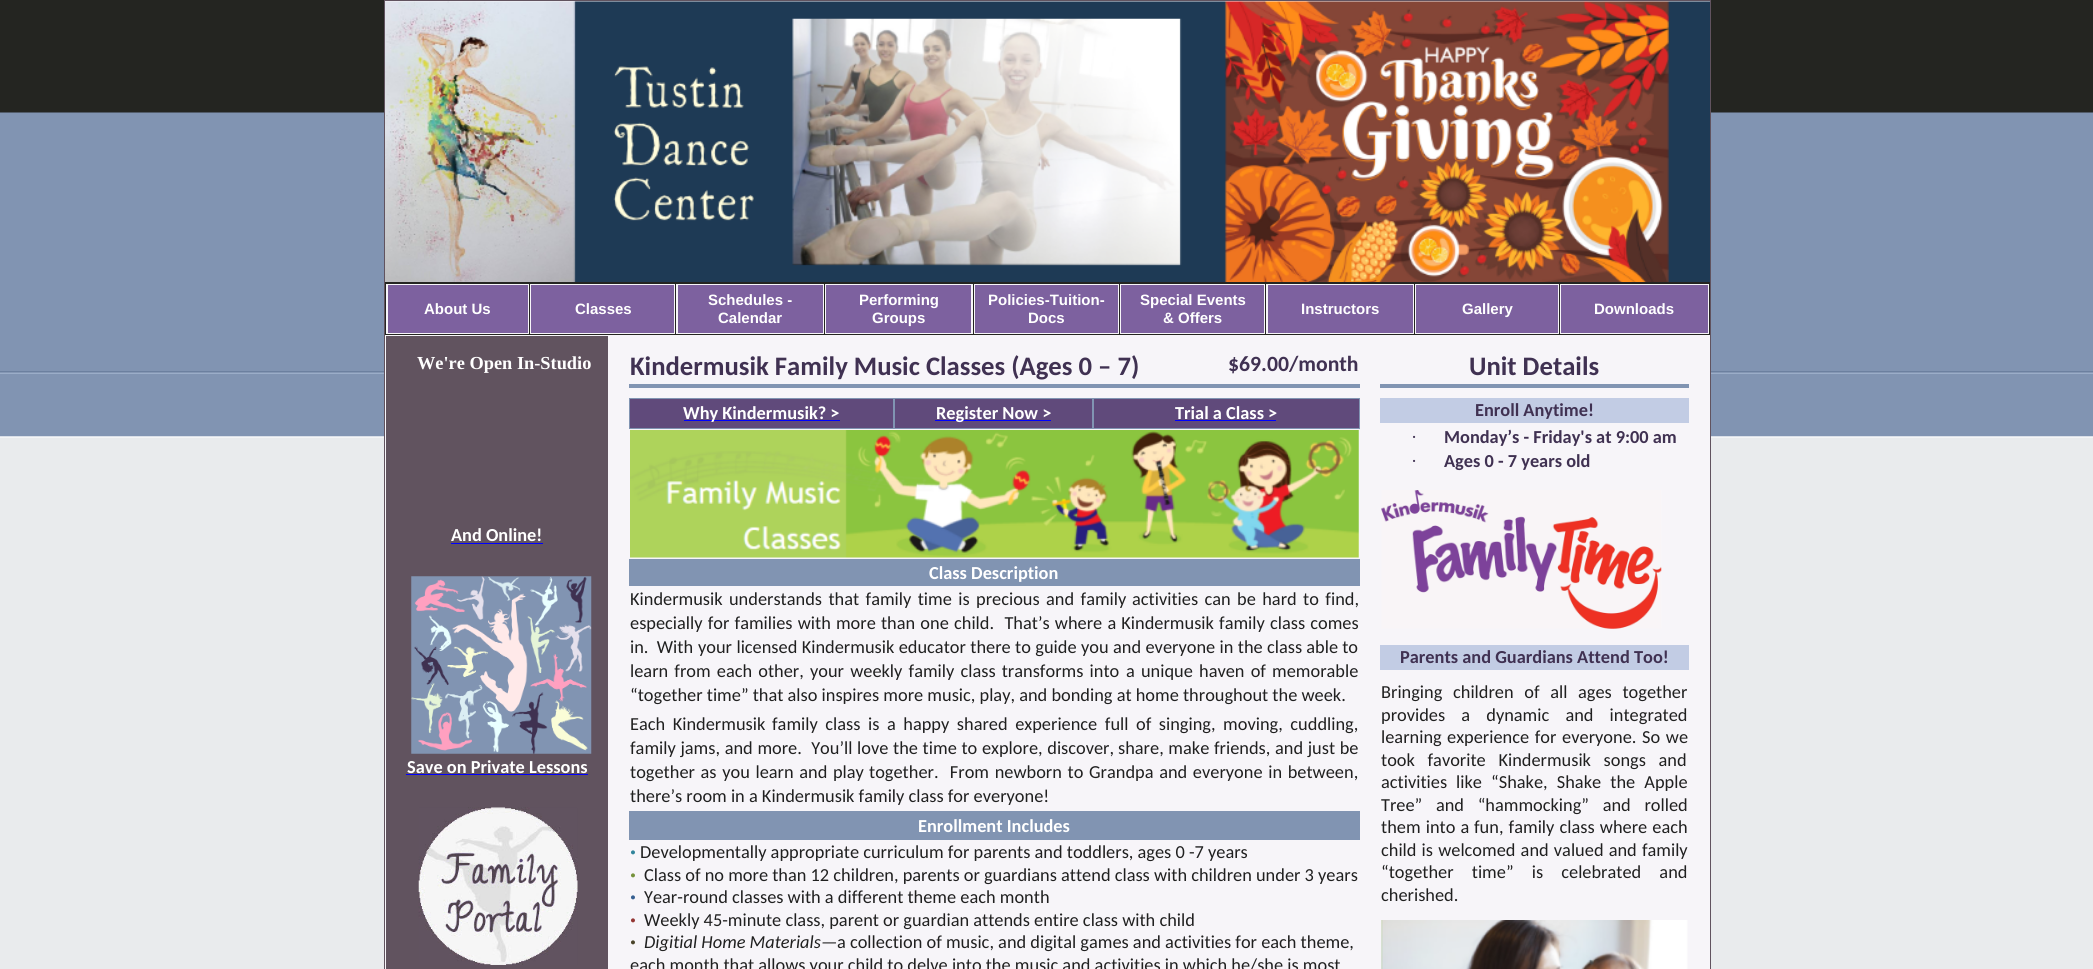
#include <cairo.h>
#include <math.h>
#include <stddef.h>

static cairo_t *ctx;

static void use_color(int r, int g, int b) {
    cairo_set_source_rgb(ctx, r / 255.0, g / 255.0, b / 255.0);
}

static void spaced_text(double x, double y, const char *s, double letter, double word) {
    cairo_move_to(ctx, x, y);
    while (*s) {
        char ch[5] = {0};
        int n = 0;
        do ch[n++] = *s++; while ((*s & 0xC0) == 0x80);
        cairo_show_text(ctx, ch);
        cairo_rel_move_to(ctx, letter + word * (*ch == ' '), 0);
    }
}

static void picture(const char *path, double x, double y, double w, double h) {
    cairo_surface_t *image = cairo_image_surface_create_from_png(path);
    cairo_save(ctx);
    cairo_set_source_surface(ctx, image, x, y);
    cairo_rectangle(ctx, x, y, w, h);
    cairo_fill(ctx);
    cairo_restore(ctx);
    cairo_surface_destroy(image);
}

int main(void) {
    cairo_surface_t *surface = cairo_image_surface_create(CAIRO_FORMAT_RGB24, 2093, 969);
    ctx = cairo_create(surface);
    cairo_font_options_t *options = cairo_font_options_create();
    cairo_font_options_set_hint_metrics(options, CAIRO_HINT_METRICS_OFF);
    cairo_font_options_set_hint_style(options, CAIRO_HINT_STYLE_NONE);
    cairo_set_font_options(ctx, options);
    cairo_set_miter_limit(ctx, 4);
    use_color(255, 255, 255);
    cairo_paint(ctx);
    picture("img1.png", 0, 0, 2093, 969);
    use_color(97, 83, 95);
    cairo_rectangle(ctx, 384, 0, 1327, 969);
    cairo_fill(ctx);
    use_color(247, 245, 249);
    cairo_rectangle(ctx, 385, 1, 1325, 1);
    cairo_fill(ctx);
    picture("img2.png", 385, 1, 1325, 281);
    use_color(36, 37, 33);
    cairo_rectangle(ctx, 385, 282, 1325, 53);
    cairo_fill(ctx);
    use_color(247, 245, 249);
    cairo_rectangle(ctx, 386, 284, 143, 50);
    cairo_fill(ctx);
    use_color(125, 97, 159);
    cairo_rectangle(ctx, 388, 285, 140, 48);
    cairo_fill(ctx);
    cairo_select_font_face(ctx, "Liberation Sans", CAIRO_FONT_SLANT_NORMAL, CAIRO_FONT_WEIGHT_BOLD);
    cairo_set_font_size(ctx, 15);
    use_color(255, 255, 255);
    cairo_move_to(ctx, 424, 314);
    cairo_show_text(ctx, "About Us");
    use_color(247, 245, 249);
    cairo_rectangle(ctx, 530, 284, 145, 50);
    cairo_fill(ctx);
    use_color(125, 97, 159);
    cairo_rectangle(ctx, 531, 285, 143, 48);
    cairo_fill(ctx);
    use_color(255, 255, 255);
    cairo_move_to(ctx, 575, 314);
    cairo_show_text(ctx, "Classes");
    use_color(247, 245, 249);
    cairo_rectangle(ctx, 676, 284, 148, 50);
    cairo_fill(ctx);
    use_color(125, 97, 159);
    cairo_rectangle(ctx, 678, 285, 145, 48);
    cairo_fill(ctx);
    use_color(255, 255, 255);
    cairo_move_to(ctx, 708, 305);
    cairo_show_text(ctx, "Schedules -");
    cairo_move_to(ctx, 718, 323);
    cairo_show_text(ctx, "Calendar");
    use_color(247, 245, 249);
    cairo_rectangle(ctx, 825, 284, 148, 50);
    cairo_fill(ctx);
    use_color(125, 97, 159);
    cairo_rectangle(ctx, 826, 285, 145, 48);
    cairo_fill(ctx);
    use_color(255, 255, 255);
    cairo_move_to(ctx, 859, 305);
    cairo_show_text(ctx, "Performing");
    cairo_move_to(ctx, 872, 323);
    cairo_show_text(ctx, "Groups");
    use_color(247, 245, 249);
    cairo_rectangle(ctx, 974, 284, 145, 50);
    cairo_fill(ctx);
    use_color(125, 97, 159);
    cairo_rectangle(ctx, 975, 285, 143, 48);
    cairo_fill(ctx);
    use_color(255, 255, 255);
    cairo_move_to(ctx, 988, 305);
    cairo_show_text(ctx, "Policies-Tuition-");
    cairo_move_to(ctx, 1028, 323);
    cairo_show_text(ctx, "Docs");
    use_color(247, 245, 249);
    cairo_rectangle(ctx, 1120, 284, 145, 50);
    cairo_fill(ctx);
    use_color(125, 97, 159);
    cairo_rectangle(ctx, 1121, 285, 143, 48);
    cairo_fill(ctx);
    use_color(255, 255, 255);
    cairo_move_to(ctx, 1140, 305);
    cairo_show_text(ctx, "Special Events");
    cairo_move_to(ctx, 1163, 323);
    cairo_show_text(ctx, "& Offers");
    use_color(247, 245, 249);
    cairo_rectangle(ctx, 1266, 284, 148, 50);
    cairo_fill(ctx);
    use_color(125, 97, 159);
    cairo_rectangle(ctx, 1268, 285, 145, 48);
    cairo_fill(ctx);
    use_color(255, 255, 255);
    cairo_move_to(ctx, 1301, 314);
    cairo_show_text(ctx, "Instructors");
    use_color(247, 245, 249);
    cairo_rectangle(ctx, 1415, 284, 144, 50);
    cairo_fill(ctx);
    use_color(125, 97, 159);
    cairo_rectangle(ctx, 1416, 285, 142, 48);
    cairo_fill(ctx);
    use_color(255, 255, 255);
    cairo_move_to(ctx, 1462, 314);
    cairo_show_text(ctx, "Gallery");
    use_color(247, 245, 249);
    cairo_rectangle(ctx, 1560, 284, 149, 50);
    cairo_fill(ctx);
    use_color(125, 97, 159);
    cairo_rectangle(ctx, 1561, 285, 147, 48);
    cairo_fill(ctx);
    use_color(255, 255, 255);
    cairo_move_to(ctx, 1594, 314);
    cairo_show_text(ctx, "Downloads");
    use_color(247, 245, 249);
    cairo_rectangle(ctx, 385, 335, 1325, 634);
    cairo_fill(ctx);
    use_color(97, 83, 95);
    cairo_rectangle(ctx, 386, 336, 222, 633);
    cairo_fill(ctx);
    cairo_select_font_face(ctx, "Liberation Serif", CAIRO_FONT_SLANT_NORMAL, CAIRO_FONT_WEIGHT_BOLD);
    cairo_set_font_size(ctx, 18.35);
    use_color(255, 255, 255);
    cairo_move_to(ctx, 417, 369);
    cairo_show_text(ctx, "We're Open In-Studio");
    cairo_select_font_face(ctx, "Carlito", CAIRO_FONT_SLANT_NORMAL, CAIRO_FONT_WEIGHT_BOLD);
    cairo_move_to(ctx, 451, 541);
    cairo_show_text(ctx, "And Online!");
    use_color(0, 0, 255);
    cairo_rectangle(ctx, 451, 543, 92, 1);
    cairo_fill(ctx);
    picture("img3.png", 411, 576, 181, 178);
    use_color(255, 255, 255);
    cairo_move_to(ctx, 407, 773);
    cairo_show_text(ctx, "Save on Private Lessons");
    use_color(0, 0, 255);
    cairo_rectangle(ctx, 406, 774, 182, 1);
    cairo_fill(ctx);
    picture("img4.png", 418, 807, 160, 158);
    use_color(129, 148, 178);
    cairo_rectangle(ctx, 629, 384, 731, 4);
    cairo_fill(ctx);
    cairo_set_font_size(ctx, 26.7);
    use_color(64, 49, 82);
    cairo_move_to(ctx, 630, 375);
    cairo_show_text(ctx, "Kindermusik Family Music Classes (Ages 0 – 7)");
    cairo_set_font_size(ctx, 21.75);
    cairo_move_to(ctx, 1228, 371);
    cairo_show_text(ctx, "$69.00/month");
    use_color(96, 74, 123);
    cairo_rectangle(ctx, 629.5, 398.5, 264, 30);
    cairo_fill_preserve(ctx);
    use_color(129, 148, 178);
    cairo_set_line_width(ctx, 1);
    cairo_stroke(ctx);
    use_color(0, 0, 255);
    cairo_rectangle(ctx, 684, 420, 156, 1);
    cairo_fill(ctx);
    cairo_set_font_size(ctx, 18.35);
    use_color(255, 255, 255);
    cairo_move_to(ctx, 683, 419);
    cairo_show_text(ctx, "Why Kindermusik? >");
    use_color(96, 74, 123);
    cairo_rectangle(ctx, 894.5, 398.5, 198, 30);
    cairo_fill_preserve(ctx);
    use_color(129, 148, 178);
    cairo_stroke(ctx);
    use_color(0, 0, 255);
    cairo_rectangle(ctx, 935, 420, 116, 1);
    cairo_fill(ctx);
    use_color(255, 255, 255);
    cairo_move_to(ctx, 936, 419);
    cairo_show_text(ctx, "Register Now >");
    use_color(96, 74, 123);
    cairo_rectangle(ctx, 1093.5, 398.5, 266, 30);
    cairo_fill_preserve(ctx);
    use_color(129, 148, 178);
    cairo_stroke(ctx);
    use_color(255, 255, 255);
    cairo_move_to(ctx, 1175, 419);
    cairo_show_text(ctx, "Trial a Class >");
    use_color(0, 0, 255);
    cairo_rectangle(ctx, 1175, 420, 101, 1);
    cairo_fill(ctx);
    picture("img5.png", 630, 430, 729, 128);
    use_color(129, 148, 178);
    cairo_rectangle(ctx, 629, 559, 731, 27);
    cairo_fill(ctx);
    use_color(255, 255, 255);
    cairo_move_to(ctx, 929, 579);
    cairo_show_text(ctx, "Class Description");
    cairo_select_font_face(ctx, "Carlito", CAIRO_FONT_SLANT_NORMAL, CAIRO_FONT_WEIGHT_NORMAL);
    use_color(32, 32, 32);
    spaced_text(630, 605, "Kindermusik understands that family time is precious and family", 0, 2.25);
    spaced_text(1132, 605, "activities can be hard to find,", 0, 2.25);
    spaced_text(630, 629, "especially for families with more than one", 0, 1);
    spaced_text(954, 629, "child.  That’s where a Kindermusik family class comes", 0, 1);
    cairo_move_to(ctx, 630, 653);
    cairo_show_text(ctx, "in.  With");
    spaced_text(698, 653, "your licensed Kindermusik educator there to guide you and everyone in the", 0, 0.25);
    cairo_move_to(ctx, 1267, 653);
    cairo_show_text(ctx, "class able to");
    spaced_text(630, 677, "learn from each other, your weekly family class transforms into", 0, 2);
    spaced_text(1126, 677, "a unique haven of memorable", 0, 2);
    cairo_move_to(ctx, 630, 701);
    cairo_show_text(ctx, "“together time” that also inspires more music, play, and bonding at home throughout the week.");
    spaced_text(630, 730, "Each Kindermusik", 0, 3.4);
    spaced_text(772, 730, "family class is a happy shared experience full of singing, moving, cuddling,", 0, 3.4);
    spaced_text(630, 754, "family jams, and more.  You’ll love the time to explore, discover,", 0, 0.5);
    spaced_text(1118, 754, "share, make friends, and just be", 0, 0.5);
    spaced_text(630, 778, "together as you learn and play", 0, 1.5);
    spaced_text(869, 778, "together.  From newborn to Grandpa and everyone in between,", 0, 1.5);
    cairo_move_to(ctx, 630, 802);
    cairo_show_text(ctx, "there’s room in a Kindermusik family class for everyone!");
    use_color(129, 148, 178);
    cairo_rectangle(ctx, 629, 811, 731, 29);
    cairo_fill(ctx);
    cairo_select_font_face(ctx, "Carlito", CAIRO_FONT_SLANT_NORMAL, CAIRO_FONT_WEIGHT_BOLD);
    use_color(255, 255, 255);
    cairo_move_to(ctx, 918, 832);
    cairo_show_text(ctx, "Enrollment Includes");
    cairo_select_font_face(ctx, "Liberation Serif", CAIRO_FONT_SLANT_NORMAL, CAIRO_FONT_WEIGHT_NORMAL);
    cairo_set_font_size(ctx, 17);
    use_color(49, 132, 155);
    cairo_move_to(ctx, 630, 858);
    cairo_show_text(ctx, "•");
    cairo_select_font_face(ctx, "Carlito", CAIRO_FONT_SLANT_NORMAL, CAIRO_FONT_WEIGHT_NORMAL);
    cairo_set_font_size(ctx, 18.35);
    use_color(32, 32, 32);
    cairo_move_to(ctx, 640, 858);
    cairo_show_text(ctx, "Developmentally appropriate curriculum for parents and toddlers, ages 0 -7 years");
    cairo_select_font_face(ctx, "Liberation Serif", CAIRO_FONT_SLANT_NORMAL, CAIRO_FONT_WEIGHT_NORMAL);
    cairo_set_font_size(ctx, 17);
    use_color(118, 146, 60);
    cairo_move_to(ctx, 630, 881);
    cairo_show_text(ctx, "•");
    cairo_select_font_face(ctx, "Carlito", CAIRO_FONT_SLANT_NORMAL, CAIRO_FONT_WEIGHT_NORMAL);
    cairo_set_font_size(ctx, 18.35);
    use_color(32, 32, 32);
    cairo_move_to(ctx, 644, 881);
    cairo_show_text(ctx, "Class of no more than 12 children, parents or guardians attend class with children under 3 years");
    cairo_select_font_face(ctx, "Liberation Serif", CAIRO_FONT_SLANT_NORMAL, CAIRO_FONT_WEIGHT_NORMAL);
    cairo_set_font_size(ctx, 17);
    use_color(54, 95, 145);
    cairo_move_to(ctx, 630, 903);
    cairo_show_text(ctx, "•");
    cairo_select_font_face(ctx, "Carlito", CAIRO_FONT_SLANT_NORMAL, CAIRO_FONT_WEIGHT_NORMAL);
    cairo_set_font_size(ctx, 18.35);
    use_color(32, 32, 32);
    cairo_move_to(ctx, 644, 903);
    cairo_show_text(ctx, "Year-round classes with a different theme each month");
    cairo_select_font_face(ctx, "Liberation Serif", CAIRO_FONT_SLANT_NORMAL, CAIRO_FONT_WEIGHT_NORMAL);
    cairo_set_font_size(ctx, 17);
    use_color(148, 54, 52);
    cairo_move_to(ctx, 630, 926);
    cairo_show_text(ctx, "•");
    cairo_select_font_face(ctx, "Carlito", CAIRO_FONT_SLANT_NORMAL, CAIRO_FONT_WEIGHT_NORMAL);
    cairo_set_font_size(ctx, 18.35);
    use_color(32, 32, 32);
    cairo_move_to(ctx, 644, 926);
    cairo_show_text(ctx, "Weekly 45-minute class, parent or guardian attends entire class with child");
    cairo_select_font_face(ctx, "Liberation Serif", CAIRO_FONT_SLANT_NORMAL, CAIRO_FONT_WEIGHT_NORMAL);
    cairo_set_font_size(ctx, 17);
    use_color(74, 68, 42);
    cairo_move_to(ctx, 630, 948);
    cairo_show_text(ctx, "•");
    cairo_select_font_face(ctx, "Carlito", CAIRO_FONT_SLANT_ITALIC, CAIRO_FONT_WEIGHT_NORMAL);
    cairo_set_font_size(ctx, 18.35);
    use_color(32, 32, 32);
    cairo_move_to(ctx, 644, 948);
    cairo_show_text(ctx, "Digitial Home Materials—");
    cairo_select_font_face(ctx, "Carlito", CAIRO_FONT_SLANT_NORMAL, CAIRO_FONT_WEIGHT_NORMAL);
    cairo_move_to(ctx, 837, 948);
    cairo_show_text(ctx, "a collection of music, and digital games and activities for each theme,");
    cairo_move_to(ctx, 630, 971);
    cairo_show_text(ctx, "each month that allows your child to delve into the music and activities in which he/she is most");
    use_color(129, 148, 178);
    cairo_rectangle(ctx, 1380, 384, 309, 4);
    cairo_fill(ctx);
    cairo_select_font_face(ctx, "Carlito", CAIRO_FONT_SLANT_NORMAL, CAIRO_FONT_WEIGHT_BOLD);
    cairo_set_font_size(ctx, 26.7);
    use_color(64, 49, 82);
    cairo_move_to(ctx, 1469, 375);
    cairo_show_text(ctx, "Unit Details");
    use_color(194, 204, 228);
    cairo_rectangle(ctx, 1380, 398, 309, 25);
    cairo_fill(ctx);
    cairo_set_font_size(ctx, 18.35);
    use_color(64, 49, 82);
    cairo_move_to(ctx, 1475, 416);
    cairo_show_text(ctx, "Enroll Anytime!");
    cairo_select_font_face(ctx, "Liberation Serif", CAIRO_FONT_SLANT_NORMAL, CAIRO_FONT_WEIGHT_NORMAL);
    cairo_move_to(ctx, 1411, 443);
    cairo_show_text(ctx, "·");
    cairo_select_font_face(ctx, "Carlito", CAIRO_FONT_SLANT_NORMAL, CAIRO_FONT_WEIGHT_BOLD);
    cairo_move_to(ctx, 1444, 443);
    cairo_show_text(ctx, "Monday’s - Friday's at 9:00 am");
    cairo_select_font_face(ctx, "Liberation Serif", CAIRO_FONT_SLANT_NORMAL, CAIRO_FONT_WEIGHT_NORMAL);
    cairo_move_to(ctx, 1411, 467);
    cairo_show_text(ctx, "·");
    cairo_select_font_face(ctx, "Carlito", CAIRO_FONT_SLANT_NORMAL, CAIRO_FONT_WEIGHT_BOLD);
    cairo_move_to(ctx, 1444, 467);
    cairo_show_text(ctx, "Ages 0 - 7 years old");
    picture("img6.png", 1381, 490, 281, 139);
    use_color(194, 204, 228);
    cairo_rectangle(ctx, 1380, 645, 309, 25);
    cairo_fill(ctx);
    use_color(64, 49, 82);
    cairo_move_to(ctx, 1400, 663);
    cairo_show_text(ctx, "Parents and Guardians Attend Too!");
    cairo_select_font_face(ctx, "Carlito", CAIRO_FONT_SLANT_NORMAL, CAIRO_FONT_WEIGHT_NORMAL);
    use_color(32, 32, 32);
    cairo_move_to(ctx, 1381, 698);
    cairo_show_text(ctx, "Bringing");
    spaced_text(1453, 698, "children of all ages together", 0, 6.5);
    spaced_text(1381, 721, "provides a dynamic and integrated", 0, 12);
    cairo_move_to(ctx, 1381, 743);
    cairo_show_text(ctx, "learning");
    spaced_text(1447, 743, "experience for everyone. So we", 0, 1.5);
    spaced_text(1381, 766, "took favorite Kindermusik songs and", 0, 8.5);
    cairo_move_to(ctx, 1381, 788);
    cairo_show_text(ctx, "activities");
    spaced_text(1456, 788, "like “Shake, Shake the Apple", 0, 5);
    spaced_text(1381, 811, "Tree” and “hammocking” and rolled", 0, 9.5);
    spaced_text(1381, 833, "them into a", 0, 1);
    spaced_text(1474, 833, "fun, family class where each", 0, 1);
    spaced_text(1381, 856, "child is welcomed and valued and family", 0, 1);
    spaced_text(1381, 878, "“together time” is celebrated and", 0, 14);
    cairo_move_to(ctx, 1381, 901);
    cairo_show_text(ctx, "cherished.");
    picture("img7.png", 1381, 920, 307, 49);
    cairo_surface_write_to_png(surface, "result.png");
    cairo_font_options_destroy(options);
    cairo_destroy(ctx);
    cairo_surface_destroy(surface);
    return 0;
}
